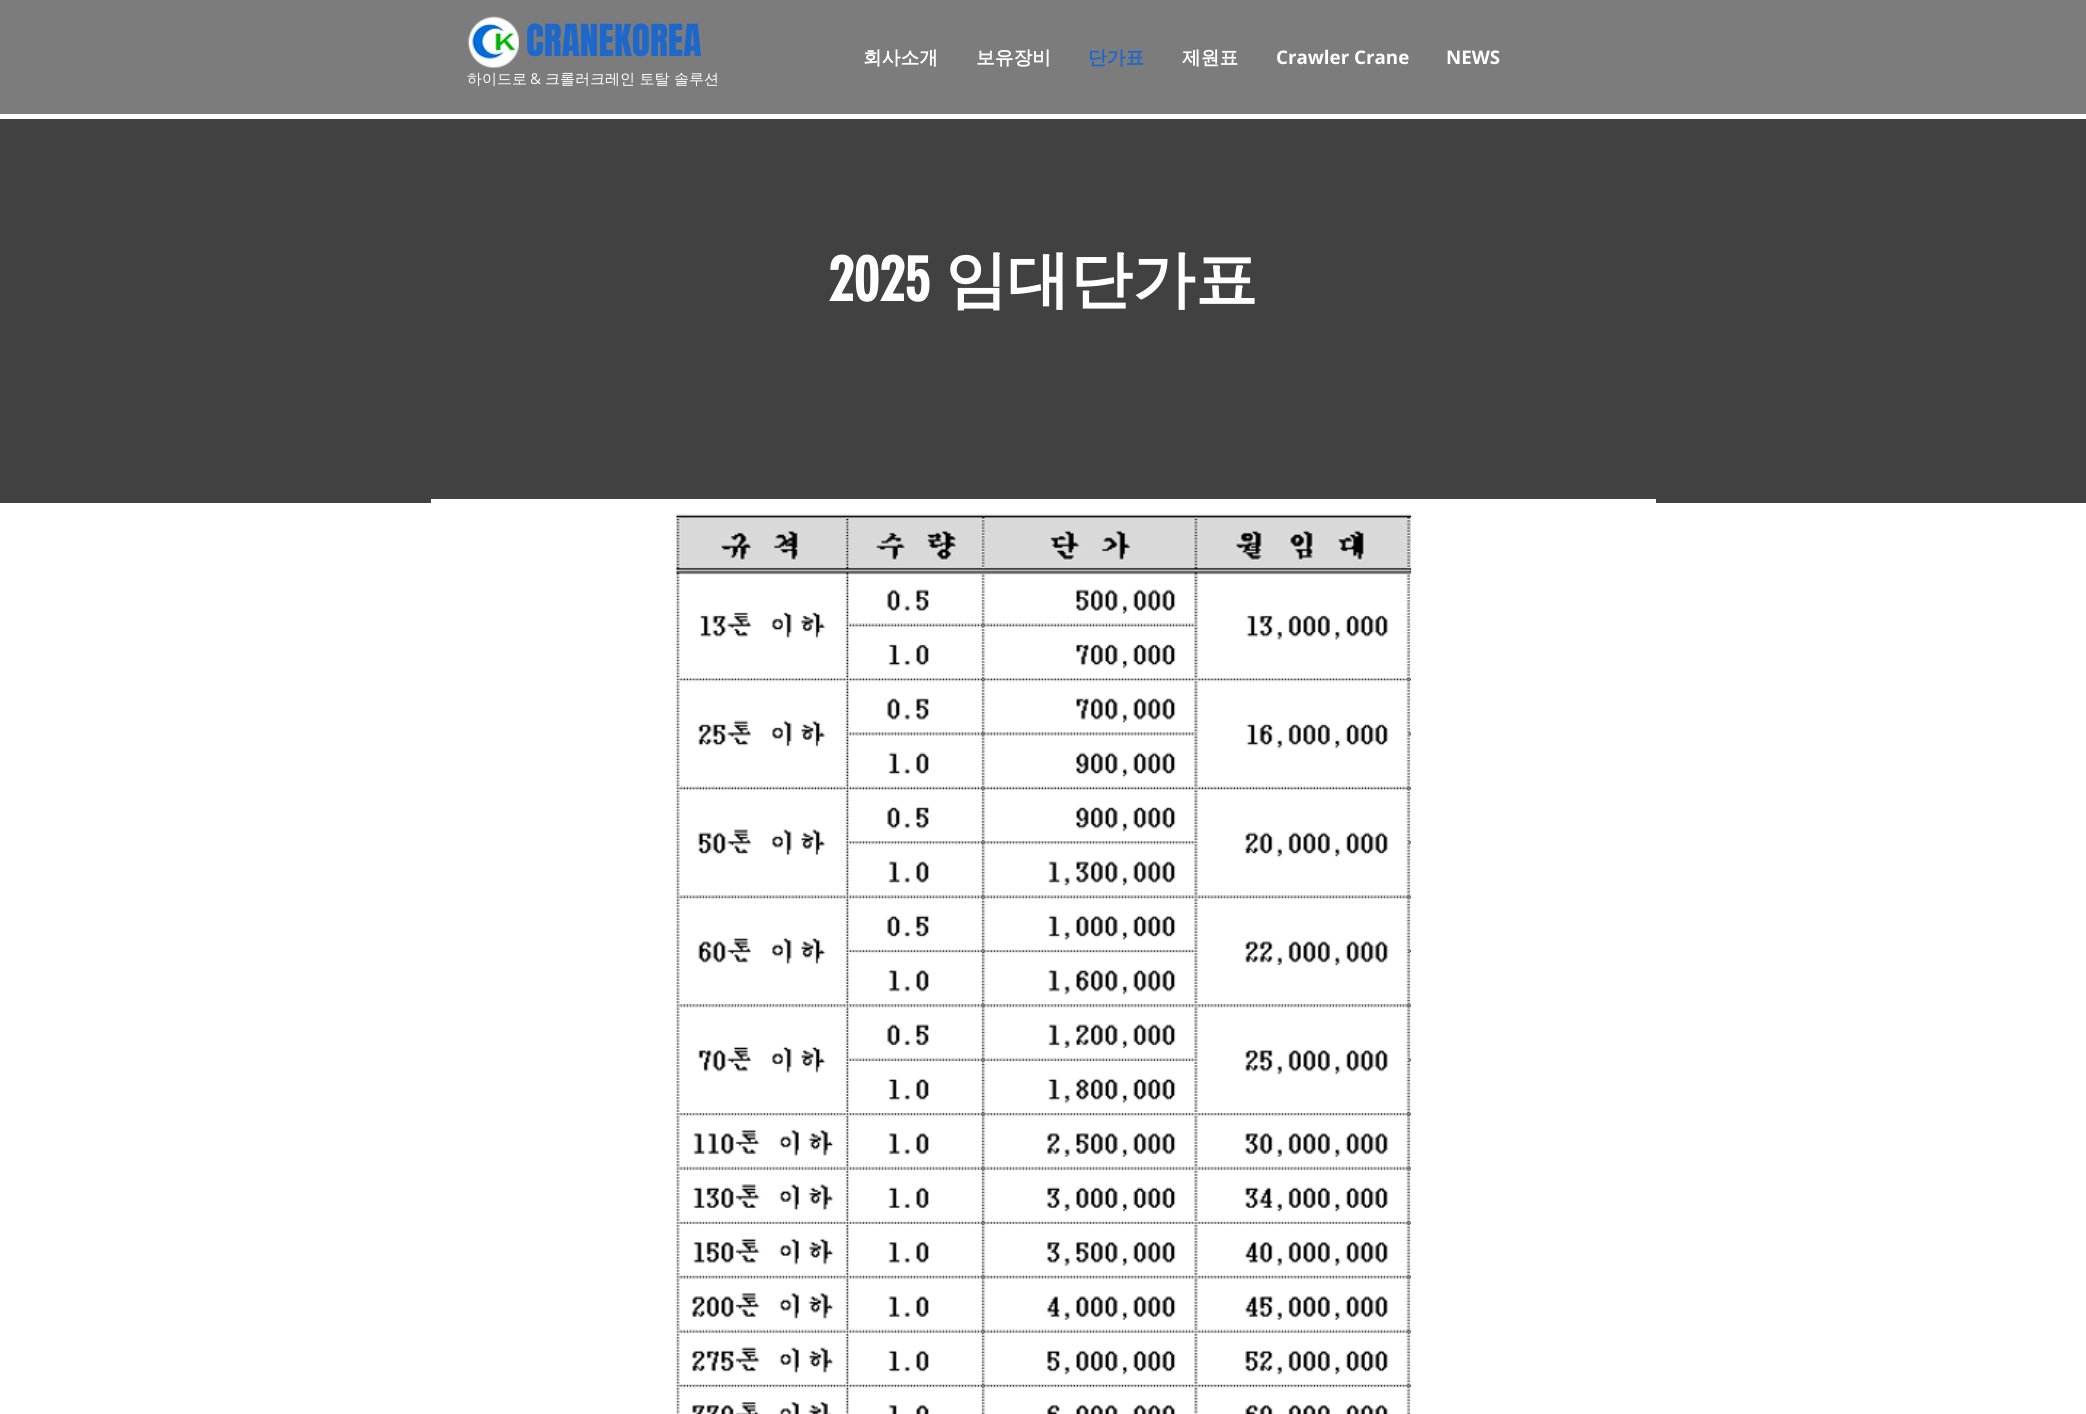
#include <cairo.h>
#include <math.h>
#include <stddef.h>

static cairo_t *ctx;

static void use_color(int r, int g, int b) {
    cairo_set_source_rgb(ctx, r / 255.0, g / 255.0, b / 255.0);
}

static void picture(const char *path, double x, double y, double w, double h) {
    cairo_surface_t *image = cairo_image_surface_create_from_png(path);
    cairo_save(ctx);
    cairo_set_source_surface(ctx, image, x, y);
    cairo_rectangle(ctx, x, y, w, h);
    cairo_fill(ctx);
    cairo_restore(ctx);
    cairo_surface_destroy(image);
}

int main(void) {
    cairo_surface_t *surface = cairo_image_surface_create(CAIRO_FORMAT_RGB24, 2086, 1414);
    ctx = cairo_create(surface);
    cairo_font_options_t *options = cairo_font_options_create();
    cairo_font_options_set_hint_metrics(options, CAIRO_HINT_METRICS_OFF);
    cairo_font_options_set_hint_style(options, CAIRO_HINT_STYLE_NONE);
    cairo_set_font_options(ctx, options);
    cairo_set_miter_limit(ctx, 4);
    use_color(255, 255, 255);
    cairo_paint(ctx);
    use_color(124, 124, 124);
    cairo_rectangle(ctx, 0, 0, 2086, 114);
    cairo_fill(ctx);
    picture("img1.png", 467, 16, 52, 52);
    cairo_select_font_face(ctx, "Anton", CAIRO_FONT_SLANT_NORMAL, CAIRO_FONT_WEIGHT_NORMAL);
    cairo_set_font_size(ctx, 37.5);
    use_color(30, 104, 203);
    cairo_move_to(ctx, 526, 56);
    cairo_show_text(ctx, "CRANEKOREA");
    cairo_select_font_face(ctx, "WenQuanYi Zen Hei", CAIRO_FONT_SLANT_NORMAL, CAIRO_FONT_WEIGHT_BOLD);
    cairo_set_font_size(ctx, 18.75);
    use_color(255, 255, 255);
    cairo_move_to(ctx, 863, 64);
    cairo_show_text(ctx, "회사소개");
    cairo_move_to(ctx, 976, 64);
    cairo_show_text(ctx, "보유장비");
    use_color(30, 104, 203);
    cairo_move_to(ctx, 1088, 64);
    cairo_show_text(ctx, "단가표");
    use_color(255, 255, 255);
    cairo_move_to(ctx, 1182, 64);
    cairo_show_text(ctx, "제원표");
    cairo_select_font_face(ctx, "Open Sans", CAIRO_FONT_SLANT_NORMAL, CAIRO_FONT_WEIGHT_BOLD);
    cairo_move_to(ctx, 1276, 64);
    cairo_show_text(ctx, "Crawler Crane");
    cairo_move_to(ctx, 1446, 64);
    cairo_show_text(ctx, "NEWS");
    cairo_select_font_face(ctx, "WenQuanYi Zen Hei Medium", CAIRO_FONT_SLANT_NORMAL, CAIRO_FONT_WEIGHT_NORMAL);
    cairo_set_font_size(ctx, 15);
    cairo_move_to(ctx, 467, 84);
    cairo_show_text(ctx, "하이드로");
    cairo_select_font_face(ctx, "Open Sans", CAIRO_FONT_SLANT_NORMAL, CAIRO_FONT_WEIGHT_NORMAL);
    cairo_move_to(ctx, 530, 84);
    cairo_show_text(ctx, "&");
    cairo_select_font_face(ctx, "WenQuanYi Zen Hei Medium", CAIRO_FONT_SLANT_NORMAL, CAIRO_FONT_WEIGHT_NORMAL);
    cairo_move_to(ctx, 545, 84);
    cairo_show_text(ctx, "크롤러크레인 토탈 솔루션");
    use_color(65, 65, 65);
    cairo_rectangle(ctx, 0, 119, 2086, 384);
    cairo_fill(ctx);
    cairo_select_font_face(ctx, "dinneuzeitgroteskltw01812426", CAIRO_FONT_SLANT_NORMAL, CAIRO_FONT_WEIGHT_BOLD);
    cairo_set_font_size(ctx, 62.5);
    use_color(255, 255, 255);
    cairo_move_to(ctx, 828, 301);
    cairo_show_text(ctx, "2025");
    cairo_select_font_face(ctx, "WenQuanYi Zen Hei", CAIRO_FONT_SLANT_NORMAL, CAIRO_FONT_WEIGHT_BOLD);
    cairo_move_to(ctx, 945, 301);
    cairo_show_text(ctx, "임대단가표");
    cairo_rectangle(ctx, 431, 499, 1225, 4);
    cairo_fill(ctx);
    picture("img2.png", 676, 514, 736, 900);
    cairo_surface_write_to_png(surface, "result.png");
    cairo_font_options_destroy(options);
    cairo_destroy(ctx);
    cairo_surface_destroy(surface);
    return 0;
}
